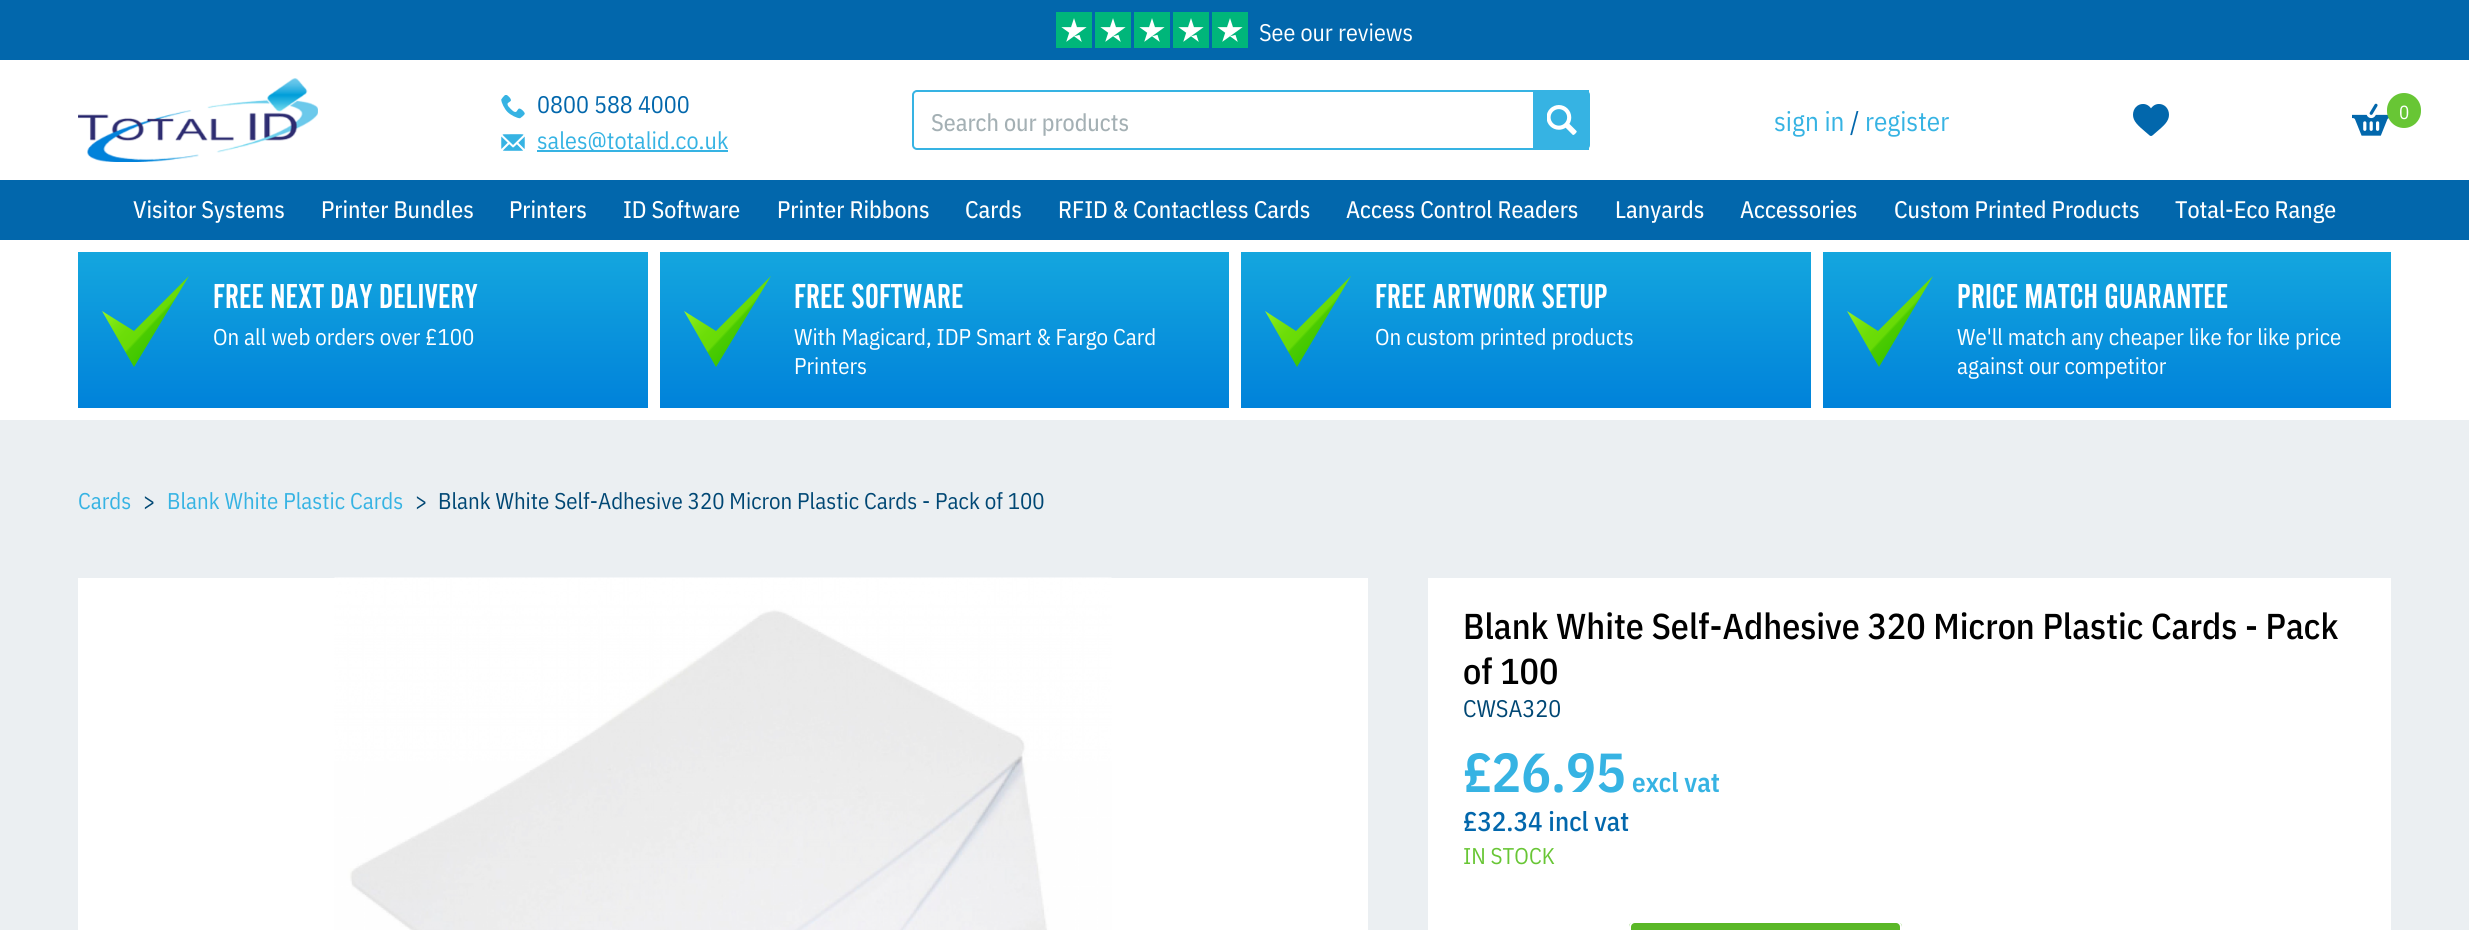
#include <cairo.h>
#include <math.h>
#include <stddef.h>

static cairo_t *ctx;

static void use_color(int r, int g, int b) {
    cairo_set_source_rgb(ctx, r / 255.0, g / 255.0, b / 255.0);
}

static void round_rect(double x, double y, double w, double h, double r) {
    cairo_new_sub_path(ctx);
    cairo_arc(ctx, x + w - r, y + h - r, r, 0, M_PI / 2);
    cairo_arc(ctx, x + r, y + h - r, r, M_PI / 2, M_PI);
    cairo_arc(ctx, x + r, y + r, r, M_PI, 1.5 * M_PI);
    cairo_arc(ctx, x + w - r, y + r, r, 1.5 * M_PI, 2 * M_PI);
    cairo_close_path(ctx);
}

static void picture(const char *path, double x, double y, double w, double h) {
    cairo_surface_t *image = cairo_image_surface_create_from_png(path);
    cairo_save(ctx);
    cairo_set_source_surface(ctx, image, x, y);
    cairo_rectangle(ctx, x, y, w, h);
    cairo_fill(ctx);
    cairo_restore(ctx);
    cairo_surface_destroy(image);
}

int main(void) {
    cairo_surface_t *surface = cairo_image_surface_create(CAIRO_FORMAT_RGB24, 2469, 930);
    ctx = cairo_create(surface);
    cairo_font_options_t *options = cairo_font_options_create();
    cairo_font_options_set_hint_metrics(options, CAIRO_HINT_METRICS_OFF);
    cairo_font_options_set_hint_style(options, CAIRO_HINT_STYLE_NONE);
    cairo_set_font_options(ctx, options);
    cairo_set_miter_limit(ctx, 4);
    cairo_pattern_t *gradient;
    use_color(235, 239, 242);
    cairo_paint(ctx);
    use_color(255, 255, 255);
    cairo_rectangle(ctx, 0, 60, 2469, 120);
    cairo_fill(ctx);
    use_color(2, 103, 172);
    cairo_rectangle(ctx, 0, 0, 2469, 60);
    cairo_fill(ctx);
    picture("img1.png", 1056, 12, 192, 36);
    cairo_select_font_face(ctx, "IBM Plex Sans Condensed", CAIRO_FONT_SLANT_NORMAL, CAIRO_FONT_WEIGHT_NORMAL);
    cairo_set_font_size(ctx, 24);
    use_color(255, 255, 255);
    cairo_move_to(ctx, 1259, 41);
    cairo_show_text(ctx, "See our reviews");
    picture("img2.png", 78, 78, 240, 84);
    picture("img3.png", 501, 95, 24, 24);
    use_color(2, 103, 172);
    cairo_move_to(ctx, 537, 113);
    cairo_show_text(ctx, "0800 588 4000");
    picture("img4.png", 501, 134, 24, 17);
    use_color(54, 179, 227);
    cairo_rectangle(ctx, 537, 150, 191, 2);
    cairo_fill(ctx);
    cairo_move_to(ctx, 537, 149);
    cairo_show_text(ctx, "sales@totalid.co.uk");
    round_rect(913, 91, 676, 58, 4);
    cairo_stroke(ctx);
    cairo_select_font_face(ctx, "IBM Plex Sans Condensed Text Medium", CAIRO_FONT_SLANT_NORMAL, CAIRO_FONT_WEIGHT_NORMAL);
    use_color(164, 176, 180);
    cairo_move_to(ctx, 931, 131);
    cairo_show_text(ctx, "Search our products");
    use_color(54, 179, 227);
    cairo_rectangle(ctx, 1533, 90, 56, 60);
    cairo_fill(ctx);
    picture("img5.png", 1547, 105, 30, 30);
    cairo_select_font_face(ctx, "IBM Plex Sans Condensed", CAIRO_FONT_SLANT_NORMAL, CAIRO_FONT_WEIGHT_NORMAL);
    cairo_set_font_size(ctx, 27);
    cairo_move_to(ctx, 1774, 131);
    cairo_show_text(ctx, "sign in");
    use_color(2, 103, 172);
    cairo_move_to(ctx, 1850, 131);
    cairo_show_text(ctx, "/");
    use_color(54, 179, 227);
    cairo_move_to(ctx, 1865, 131);
    cairo_show_text(ctx, "register");
    picture("img6.png", 2133, 104, 36, 32);
    picture("img7.png", 2352, 103, 37, 33);
    use_color(104, 198, 53);
    round_rect(2387, 93, 34, 35, 17);
    cairo_fill(ctx);
    cairo_set_font_size(ctx, 19);
    use_color(255, 255, 255);
    cairo_move_to(ctx, 2399, 119);
    cairo_show_text(ctx, "0");
    use_color(2, 103, 172);
    cairo_rectangle(ctx, 0, 180, 2469, 60);
    cairo_fill(ctx);
    cairo_select_font_face(ctx, "IBM Plex Sans Condensed Text Medium", CAIRO_FONT_SLANT_NORMAL, CAIRO_FONT_WEIGHT_NORMAL);
    cairo_set_font_size(ctx, 24);
    use_color(255, 255, 255);
    cairo_move_to(ctx, 133, 218);
    cairo_show_text(ctx, "Visitor Systems");
    cairo_move_to(ctx, 321, 218);
    cairo_show_text(ctx, "Printer Bundles");
    cairo_move_to(ctx, 509, 218);
    cairo_show_text(ctx, "Printers");
    cairo_move_to(ctx, 623, 218);
    cairo_show_text(ctx, "ID Software");
    cairo_move_to(ctx, 777, 218);
    cairo_show_text(ctx, "Printer Ribbons");
    cairo_move_to(ctx, 965, 218);
    cairo_show_text(ctx, "Cards");
    cairo_move_to(ctx, 1058, 218);
    cairo_show_text(ctx, "RFID & Contactless Cards");
    cairo_move_to(ctx, 1346, 218);
    cairo_show_text(ctx, "Access Control Readers");
    cairo_move_to(ctx, 1615, 218);
    cairo_show_text(ctx, "Lanyards");
    cairo_move_to(ctx, 1740, 218);
    cairo_show_text(ctx, "Accessories");
    cairo_move_to(ctx, 1894, 218);
    cairo_show_text(ctx, "Custom Printed Products");
    cairo_move_to(ctx, 2175, 218);
    cairo_show_text(ctx, "Total-Eco Range");
    cairo_rectangle(ctx, 0, 240, 2469, 180);
    cairo_fill(ctx);
    gradient = cairo_pattern_create_linear(363, 252, 363, 408);
    cairo_pattern_add_color_stop_rgba(gradient, 0, 0.078, 0.651, 0.871, 1);
    cairo_pattern_add_color_stop_rgba(gradient, 1, 0, 0.51, 0.855, 1);
    cairo_set_source(ctx, gradient);
    cairo_pattern_destroy(gradient);
    cairo_rectangle(ctx, 78, 252, 570, 156);
    cairo_fill(ctx);
    gradient = cairo_pattern_create_linear(125, 287, 170, 329);
    cairo_pattern_add_color_stop_rgba(gradient, 0, 0.608, 0.965, 0.137, 1);
    cairo_pattern_add_color_stop_rgba(gradient, 0.12, 0.541, 0.929, 0.098, 1);
    cairo_pattern_add_color_stop_rgba(gradient, 0.31, 0.467, 0.89, 0.059, 1);
    cairo_pattern_add_color_stop_rgba(gradient, 0.5, 0.424, 0.867, 0.031, 1);
    cairo_pattern_add_color_stop_rgba(gradient, 0.71, 0.408, 0.859, 0.024, 1);
    cairo_pattern_add_color_stop_rgba(gradient, 0.75, 0.29, 0.796, 0.004, 1);
    cairo_pattern_add_color_stop_rgba(gradient, 1, 0.243, 0.78, 0, 1);
    cairo_set_source(ctx, gradient);
    cairo_pattern_destroy(gradient);
    cairo_new_path(ctx);
    cairo_move_to(ctx, 189, 276);
    cairo_line_to(ctx, 134, 331);
    cairo_line_to(ctx, 102, 311);
    cairo_line_to(ctx, 134, 367);
    cairo_close_path(ctx);
    cairo_fill(ctx);
    cairo_select_font_face(ctx, "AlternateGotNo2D", CAIRO_FONT_SLANT_NORMAL, CAIRO_FONT_WEIGHT_NORMAL);
    cairo_set_font_size(ctx, 36);
    use_color(255, 255, 255);
    cairo_move_to(ctx, 213, 308);
    cairo_show_text(ctx, "FREE NEXT DAY DELIVERY");
    cairo_select_font_face(ctx, "IBM Plex Sans Condensed", CAIRO_FONT_SLANT_NORMAL, CAIRO_FONT_WEIGHT_NORMAL);
    cairo_set_font_size(ctx, 22.8);
    cairo_move_to(ctx, 213, 345);
    cairo_show_text(ctx, "On all web orders over £100");
    gradient = cairo_pattern_create_linear(944, 252, 944, 408);
    cairo_pattern_add_color_stop_rgba(gradient, 0, 0.078, 0.651, 0.871, 1);
    cairo_pattern_add_color_stop_rgba(gradient, 1, 0, 0.51, 0.855, 1);
    cairo_set_source(ctx, gradient);
    cairo_pattern_destroy(gradient);
    cairo_rectangle(ctx, 660, 252, 569, 156);
    cairo_fill(ctx);
    gradient = cairo_pattern_create_linear(707, 287, 752, 329);
    cairo_pattern_add_color_stop_rgba(gradient, 0, 0.608, 0.965, 0.137, 1);
    cairo_pattern_add_color_stop_rgba(gradient, 0.12, 0.541, 0.929, 0.098, 1);
    cairo_pattern_add_color_stop_rgba(gradient, 0.31, 0.467, 0.89, 0.059, 1);
    cairo_pattern_add_color_stop_rgba(gradient, 0.5, 0.424, 0.867, 0.031, 1);
    cairo_pattern_add_color_stop_rgba(gradient, 0.71, 0.408, 0.859, 0.024, 1);
    cairo_pattern_add_color_stop_rgba(gradient, 0.75, 0.29, 0.796, 0.004, 1);
    cairo_pattern_add_color_stop_rgba(gradient, 1, 0.243, 0.78, 0, 1);
    cairo_set_source(ctx, gradient);
    cairo_pattern_destroy(gradient);
    cairo_new_path(ctx);
    cairo_move_to(ctx, 771, 276);
    cairo_line_to(ctx, 716, 331);
    cairo_line_to(ctx, 684, 311);
    cairo_line_to(ctx, 716, 367);
    cairo_close_path(ctx);
    cairo_fill(ctx);
    cairo_select_font_face(ctx, "AlternateGotNo2D", CAIRO_FONT_SLANT_NORMAL, CAIRO_FONT_WEIGHT_NORMAL);
    cairo_set_font_size(ctx, 36);
    use_color(255, 255, 255);
    cairo_move_to(ctx, 794, 308);
    cairo_show_text(ctx, "FREE SOFTWARE");
    cairo_select_font_face(ctx, "IBM Plex Sans Condensed", CAIRO_FONT_SLANT_NORMAL, CAIRO_FONT_WEIGHT_NORMAL);
    cairo_set_font_size(ctx, 22.8);
    cairo_move_to(ctx, 794, 345);
    cairo_show_text(ctx, "With Magicard, IDP Smart & Fargo Card");
    cairo_move_to(ctx, 794, 374);
    cairo_show_text(ctx, "Printers");
    gradient = cairo_pattern_create_linear(1526, 252, 1526, 408);
    cairo_pattern_add_color_stop_rgba(gradient, 0, 0.078, 0.651, 0.871, 1);
    cairo_pattern_add_color_stop_rgba(gradient, 1, 0, 0.51, 0.855, 1);
    cairo_set_source(ctx, gradient);
    cairo_pattern_destroy(gradient);
    cairo_rectangle(ctx, 1241, 252, 570, 156);
    cairo_fill(ctx);
    gradient = cairo_pattern_create_linear(1287, 287, 1332, 329);
    cairo_pattern_add_color_stop_rgba(gradient, 0, 0.608, 0.965, 0.137, 1);
    cairo_pattern_add_color_stop_rgba(gradient, 0.12, 0.541, 0.929, 0.098, 1);
    cairo_pattern_add_color_stop_rgba(gradient, 0.31, 0.467, 0.89, 0.059, 1);
    cairo_pattern_add_color_stop_rgba(gradient, 0.5, 0.424, 0.867, 0.031, 1);
    cairo_pattern_add_color_stop_rgba(gradient, 0.71, 0.408, 0.859, 0.024, 1);
    cairo_pattern_add_color_stop_rgba(gradient, 0.75, 0.29, 0.796, 0.004, 1);
    cairo_pattern_add_color_stop_rgba(gradient, 1, 0.243, 0.78, 0, 1);
    cairo_set_source(ctx, gradient);
    cairo_pattern_destroy(gradient);
    cairo_new_path(ctx);
    cairo_move_to(ctx, 1351, 276);
    cairo_line_to(ctx, 1296, 331);
    cairo_line_to(ctx, 1265, 311);
    cairo_line_to(ctx, 1297, 367);
    cairo_close_path(ctx);
    cairo_fill(ctx);
    cairo_select_font_face(ctx, "AlternateGotNo2D", CAIRO_FONT_SLANT_NORMAL, CAIRO_FONT_WEIGHT_NORMAL);
    cairo_set_font_size(ctx, 36);
    use_color(255, 255, 255);
    cairo_move_to(ctx, 1375, 308);
    cairo_show_text(ctx, "FREE ARTWORK SETUP");
    cairo_select_font_face(ctx, "IBM Plex Sans Condensed", CAIRO_FONT_SLANT_NORMAL, CAIRO_FONT_WEIGHT_NORMAL);
    cairo_set_font_size(ctx, 22.8);
    cairo_move_to(ctx, 1375, 345);
    cairo_show_text(ctx, "On custom printed products");
    gradient = cairo_pattern_create_linear(2107, 252, 2107, 408);
    cairo_pattern_add_color_stop_rgba(gradient, 0, 0.078, 0.651, 0.871, 1);
    cairo_pattern_add_color_stop_rgba(gradient, 1, 0, 0.51, 0.855, 1);
    cairo_set_source(ctx, gradient);
    cairo_pattern_destroy(gradient);
    cairo_rectangle(ctx, 1823, 252, 568, 156);
    cairo_fill(ctx);
    gradient = cairo_pattern_create_linear(1869, 287, 1914, 329);
    cairo_pattern_add_color_stop_rgba(gradient, 0, 0.608, 0.965, 0.137, 1);
    cairo_pattern_add_color_stop_rgba(gradient, 0.12, 0.541, 0.929, 0.098, 1);
    cairo_pattern_add_color_stop_rgba(gradient, 0.31, 0.467, 0.89, 0.059, 1);
    cairo_pattern_add_color_stop_rgba(gradient, 0.5, 0.424, 0.867, 0.031, 1);
    cairo_pattern_add_color_stop_rgba(gradient, 0.71, 0.408, 0.859, 0.024, 1);
    cairo_pattern_add_color_stop_rgba(gradient, 0.75, 0.29, 0.796, 0.004, 1);
    cairo_pattern_add_color_stop_rgba(gradient, 1, 0.243, 0.78, 0, 1);
    cairo_set_source(ctx, gradient);
    cairo_pattern_destroy(gradient);
    cairo_new_path(ctx);
    cairo_move_to(ctx, 1933, 276);
    cairo_line_to(ctx, 1878, 331);
    cairo_line_to(ctx, 1847, 311);
    cairo_line_to(ctx, 1879, 367);
    cairo_close_path(ctx);
    cairo_fill(ctx);
    cairo_select_font_face(ctx, "AlternateGotNo2D", CAIRO_FONT_SLANT_NORMAL, CAIRO_FONT_WEIGHT_NORMAL);
    cairo_set_font_size(ctx, 36);
    use_color(255, 255, 255);
    cairo_move_to(ctx, 1957, 308);
    cairo_show_text(ctx, "PRICE MATCH GUARANTEE");
    cairo_select_font_face(ctx, "IBM Plex Sans Condensed", CAIRO_FONT_SLANT_NORMAL, CAIRO_FONT_WEIGHT_NORMAL);
    cairo_set_font_size(ctx, 22.8);
    cairo_move_to(ctx, 1957, 345);
    cairo_show_text(ctx, "We'll match any cheaper like for like price");
    cairo_move_to(ctx, 1957, 374);
    cairo_show_text(ctx, "against our competitor");
    use_color(54, 179, 227);
    cairo_move_to(ctx, 78, 509);
    cairo_show_text(ctx, "Cards");
    use_color(0, 71, 116);
    cairo_move_to(ctx, 143, 509);
    cairo_show_text(ctx, ">");
    use_color(54, 179, 227);
    cairo_move_to(ctx, 167, 509);
    cairo_show_text(ctx, "Blank White Plastic Cards");
    use_color(0, 71, 116);
    cairo_move_to(ctx, 415, 509);
    cairo_show_text(ctx, ">");
    cairo_move_to(ctx, 438, 509);
    cairo_show_text(ctx, "Blank White Self-Adhesive 320 Micron Plastic Cards - Pack of 100");
    use_color(255, 255, 255);
    cairo_rectangle(ctx, 78, 578, 1290, 352);
    cairo_fill(ctx);
    picture("img8.png", 334, 577, 778, 353);
    cairo_rectangle(ctx, 1428, 578, 963, 352);
    cairo_fill(ctx);
    cairo_select_font_face(ctx, "IBM Plex Sans Condensed Medium", CAIRO_FONT_SLANT_NORMAL, CAIRO_FONT_WEIGHT_NORMAL);
    cairo_set_font_size(ctx, 36);
    use_color(0, 0, 0);
    cairo_move_to(ctx, 1463, 639);
    cairo_show_text(ctx, "Blank White Self-Adhesive 320 Micron Plastic Cards - Pack");
    cairo_move_to(ctx, 1463, 684);
    cairo_show_text(ctx, "of 100");
    cairo_select_font_face(ctx, "IBM Plex Sans Condensed", CAIRO_FONT_SLANT_NORMAL, CAIRO_FONT_WEIGHT_NORMAL);
    cairo_set_font_size(ctx, 24);
    use_color(0, 71, 116);
    cairo_move_to(ctx, 1463, 717);
    cairo_show_text(ctx, "CWSA320");
    cairo_select_font_face(ctx, "IBM Plex Sans Condensed SemiBold", CAIRO_FONT_SLANT_NORMAL, CAIRO_FONT_WEIGHT_NORMAL);
    cairo_set_font_size(ctx, 55);
    use_color(54, 179, 227);
    cairo_move_to(ctx, 1463, 792);
    cairo_show_text(ctx, "£26.95");
    cairo_set_font_size(ctx, 27);
    cairo_move_to(ctx, 1632, 792);
    cairo_show_text(ctx, "excl vat");
    cairo_select_font_face(ctx, "IBM Plex Sans Condensed Medium", CAIRO_FONT_SLANT_NORMAL, CAIRO_FONT_WEIGHT_NORMAL);
    use_color(2, 103, 172);
    cairo_move_to(ctx, 1463, 831);
    cairo_show_text(ctx, "£32.34 incl vat");
    cairo_select_font_face(ctx, "IBM Plex Sans Condensed", CAIRO_FONT_SLANT_NORMAL, CAIRO_FONT_WEIGHT_NORMAL);
    cairo_set_font_size(ctx, 22.8);
    use_color(104, 198, 53);
    cairo_move_to(ctx, 1463, 864);
    cairo_show_text(ctx, "IN STOCK");
    cairo_save(ctx);
    round_rect(1629, 921, 273, 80, 6);
    cairo_clip(ctx);
    gradient = cairo_pattern_create_linear(1766, 923, 1766, 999);
    cairo_pattern_add_color_stop_rgba(gradient, 0, 0.353, 0.718, 0.153, 1);
    cairo_pattern_add_color_stop_rgba(gradient, 1, 0.408, 0.776, 0.208, 1);
    cairo_set_source(ctx, gradient);
    cairo_pattern_destroy(gradient);
    cairo_rectangle(ctx, 1629, 923, 273, 7);
    cairo_fill(ctx);
    cairo_restore(ctx);
    round_rect(1630, 922, 271, 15, 5);
    use_color(255, 255, 255);
    cairo_stroke(ctx);
    cairo_surface_write_to_png(surface, "result.png");
    cairo_font_options_destroy(options);
    cairo_destroy(ctx);
    cairo_surface_destroy(surface);
    return 0;
}
